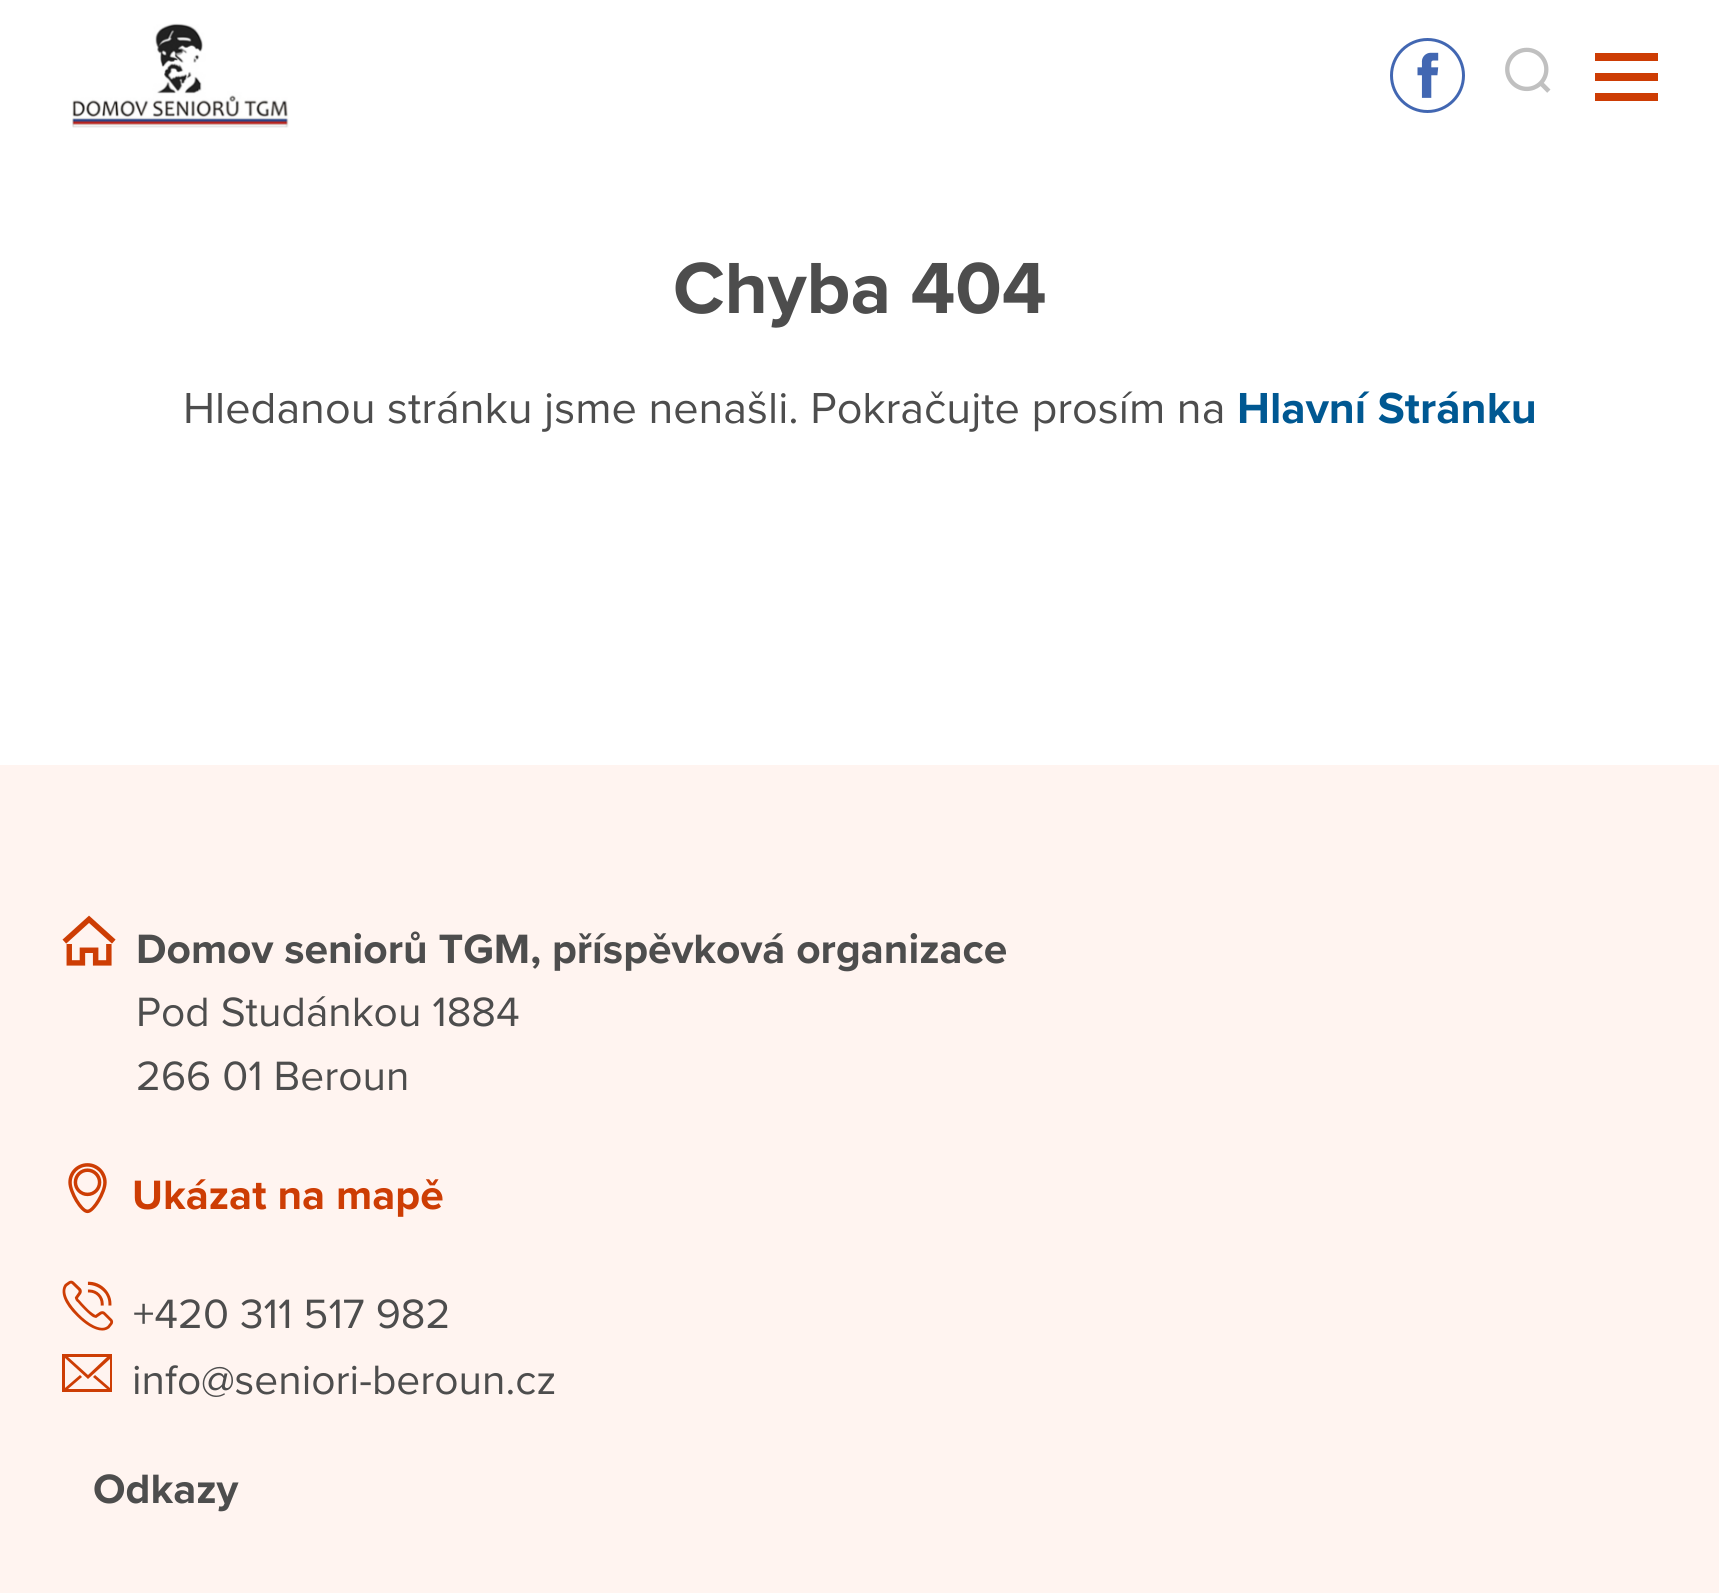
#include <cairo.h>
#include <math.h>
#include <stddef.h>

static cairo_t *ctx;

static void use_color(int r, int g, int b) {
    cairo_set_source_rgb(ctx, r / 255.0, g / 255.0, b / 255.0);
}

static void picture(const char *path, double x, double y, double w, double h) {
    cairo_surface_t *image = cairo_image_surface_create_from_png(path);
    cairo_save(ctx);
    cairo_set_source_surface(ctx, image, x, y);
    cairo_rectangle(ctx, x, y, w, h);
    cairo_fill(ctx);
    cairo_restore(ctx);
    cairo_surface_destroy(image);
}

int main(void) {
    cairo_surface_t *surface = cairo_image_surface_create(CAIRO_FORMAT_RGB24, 1719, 1593);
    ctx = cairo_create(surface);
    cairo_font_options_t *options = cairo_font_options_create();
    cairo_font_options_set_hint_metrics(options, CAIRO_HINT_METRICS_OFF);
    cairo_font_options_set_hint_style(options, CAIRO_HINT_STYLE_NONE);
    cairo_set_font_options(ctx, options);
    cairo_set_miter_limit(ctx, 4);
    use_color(255, 255, 255);
    cairo_paint(ctx);
    picture("img1.png", 72, 23, 217, 105);
    cairo_arc(ctx, 1427.5, 75.5, 36, 0, 2 * M_PI);
    use_color(66, 103, 178);
    cairo_set_line_width(ctx, 3);
    cairo_stroke(ctx);
    picture("img2.png", 1417, 52, 22, 46);
    picture("img3.png", 1505, 47, 46, 46);
    use_color(205, 61, 4);
    cairo_rectangle(ctx, 1595, 73, 63, 8);
    cairo_fill(ctx);
    cairo_rectangle(ctx, 1595, 53, 63, 8);
    cairo_fill(ctx);
    cairo_rectangle(ctx, 1595, 93, 63, 8);
    cairo_fill(ctx);
    cairo_select_font_face(ctx, "Proxima Nova", CAIRO_FONT_SLANT_NORMAL, CAIRO_FONT_WEIGHT_BOLD);
    cairo_set_font_size(ctx, 75);
    use_color(77, 77, 77);
    cairo_move_to(ctx, 673, 313);
    cairo_show_text(ctx, "Chyba 404");
    cairo_select_font_face(ctx, "Proxima Nova", CAIRO_FONT_SLANT_NORMAL, CAIRO_FONT_WEIGHT_NORMAL);
    cairo_set_font_size(ctx, 45);
    cairo_move_to(ctx, 183, 423);
    cairo_show_text(ctx, "Hledanou stránku jsme nenašli. Pokračujte prosím na");
    cairo_select_font_face(ctx, "Proxima Nova", CAIRO_FONT_SLANT_NORMAL, CAIRO_FONT_WEIGHT_BOLD);
    use_color(0, 88, 146);
    cairo_move_to(ctx, 1237, 423);
    cairo_show_text(ctx, "Hlavní Stránku");
    use_color(255, 244, 240);
    cairo_rectangle(ctx, 0, 765, 1719, 828);
    cairo_fill(ctx);
    picture("img4.png", 62, 915, 54, 51);
    cairo_set_font_size(ctx, 42.5);
    use_color(77, 77, 77);
    cairo_move_to(ctx, 136, 963);
    cairo_show_text(ctx, "Domov seniorů TGM, příspěvková organizace");
    cairo_select_font_face(ctx, "Proxima Nova", CAIRO_FONT_SLANT_NORMAL, CAIRO_FONT_WEIGHT_NORMAL);
    cairo_move_to(ctx, 136, 1026);
    cairo_show_text(ctx, "Pod Studánkou 1884");
    cairo_move_to(ctx, 136, 1090);
    cairo_show_text(ctx, "266 01 Beroun");
    picture("img5.png", 68, 1163, 39, 51);
    cairo_select_font_face(ctx, "Proxima Nova", CAIRO_FONT_SLANT_NORMAL, CAIRO_FONT_WEIGHT_BOLD);
    use_color(205, 61, 4);
    cairo_move_to(ctx, 132, 1209);
    cairo_show_text(ctx, "Ukázat na mapě");
    picture("img6.png", 62, 1280, 52, 51);
    cairo_select_font_face(ctx, "Proxima Nova", CAIRO_FONT_SLANT_NORMAL, CAIRO_FONT_WEIGHT_NORMAL);
    use_color(77, 77, 77);
    cairo_move_to(ctx, 133, 1328);
    cairo_show_text(ctx, "+420 311 517 982");
    use_color(205, 61, 4);
    cairo_new_path(ctx);
    cairo_move_to(ctx, 62, 1354);
    cairo_line_to(ctx, 62, 1392);
    cairo_line_to(ctx, 112, 1392);
    cairo_line_to(ctx, 112, 1354);
    cairo_close_path(ctx);
    cairo_move_to(ctx, 95, 1375);
    cairo_line_to(ctx, 93, 1377);
    cairo_line_to(ctx, 107, 1389);
    cairo_line_to(ctx, 68, 1389);
    cairo_line_to(ctx, 82, 1377);
    cairo_line_to(ctx, 80, 1375);
    cairo_line_to(ctx, 65, 1388);
    cairo_line_to(ctx, 65, 1358);
    cairo_line_to(ctx, 88, 1379);
    cairo_line_to(ctx, 110, 1359);
    cairo_line_to(ctx, 110, 1388);
    cairo_close_path(ctx);
    cairo_move_to(ctx, 68, 1357);
    cairo_line_to(ctx, 107, 1357);
    cairo_line_to(ctx, 88, 1375);
    cairo_close_path(ctx);
    cairo_fill(ctx);
    use_color(77, 77, 77);
    cairo_move_to(ctx, 132, 1394);
    cairo_show_text(ctx, "info@seniori-beroun.cz");
    cairo_select_font_face(ctx, "Proxima Nova", CAIRO_FONT_SLANT_NORMAL, CAIRO_FONT_WEIGHT_BOLD);
    cairo_move_to(ctx, 93, 1503);
    cairo_show_text(ctx, "Odkazy");
    cairo_surface_write_to_png(surface, "result.png");
    cairo_font_options_destroy(options);
    cairo_destroy(ctx);
    cairo_surface_destroy(surface);
    return 0;
}
